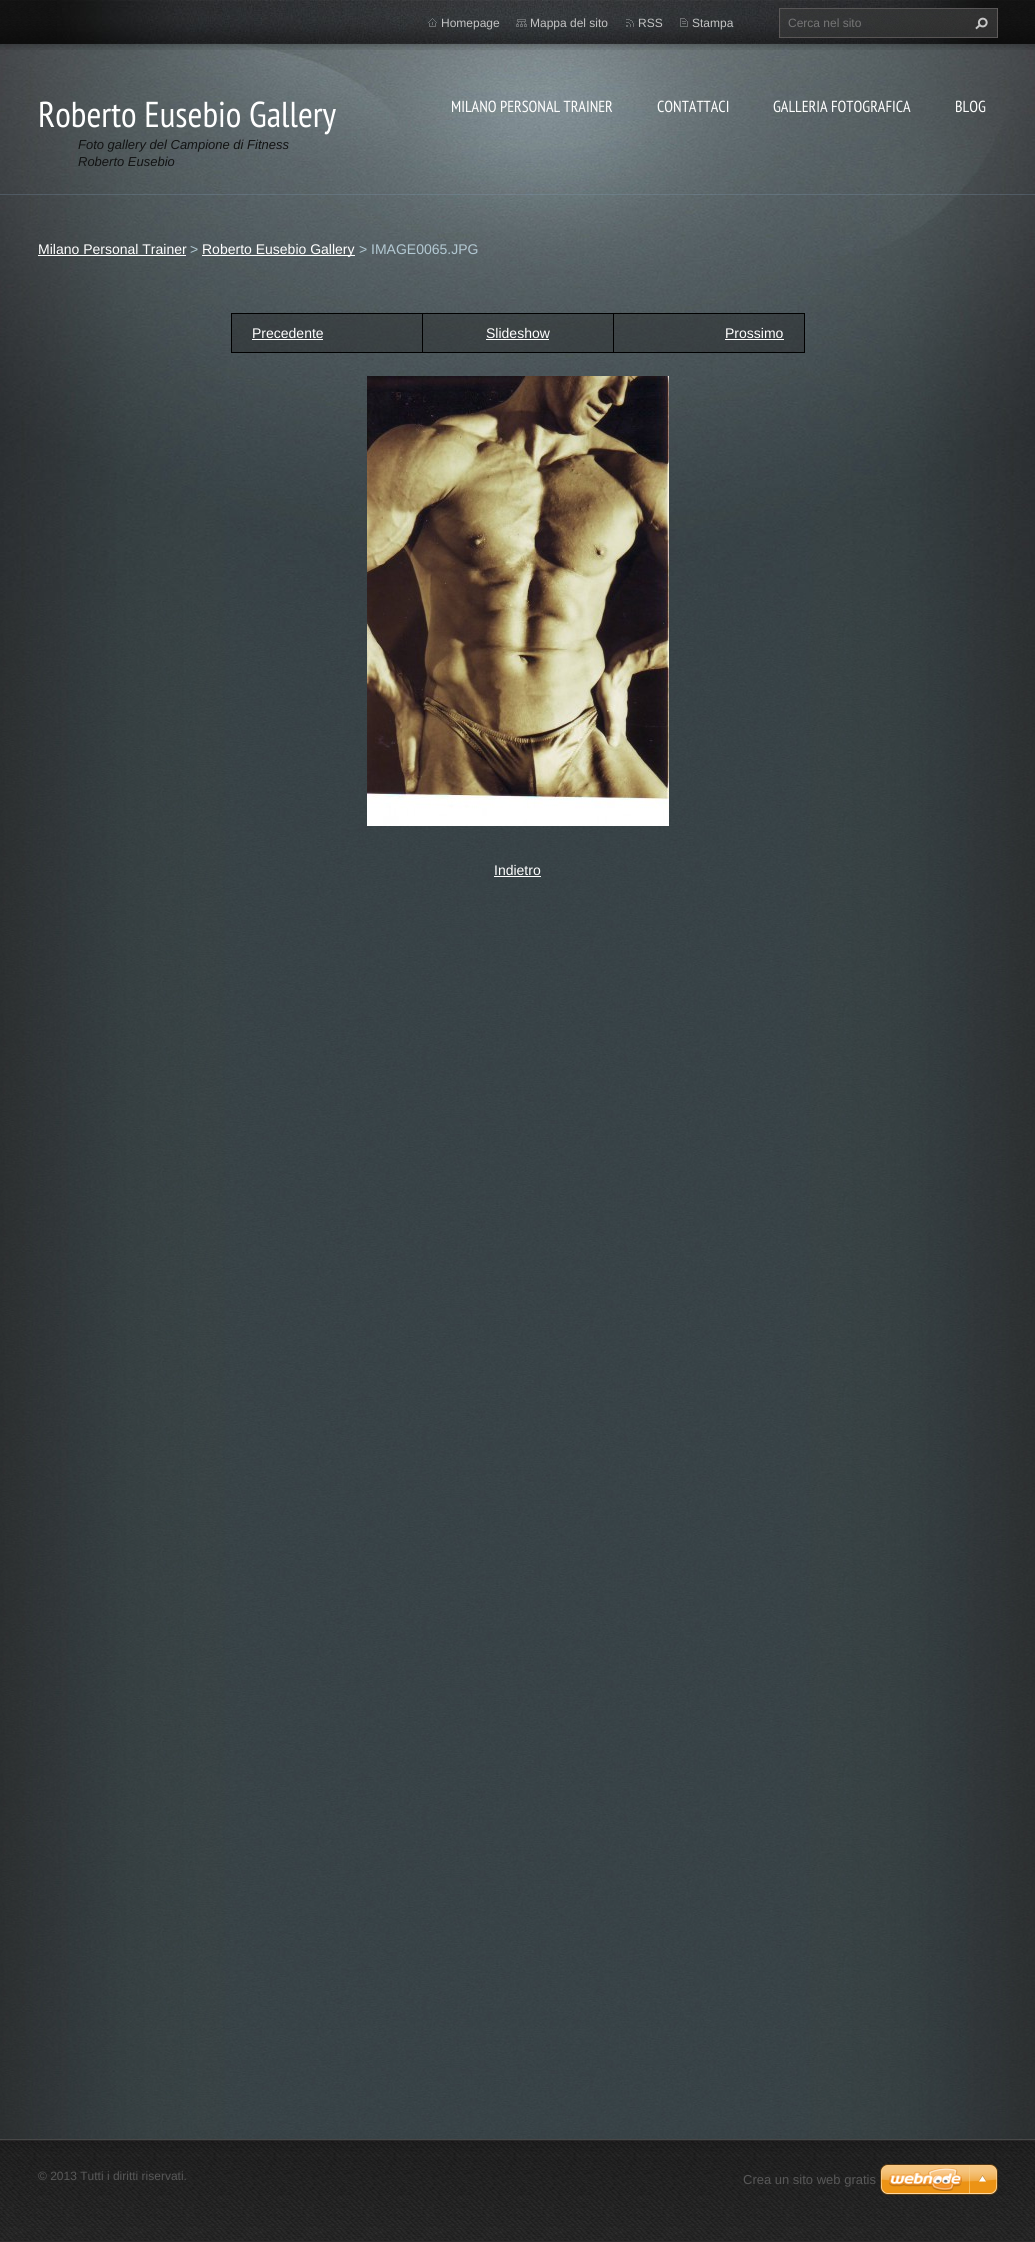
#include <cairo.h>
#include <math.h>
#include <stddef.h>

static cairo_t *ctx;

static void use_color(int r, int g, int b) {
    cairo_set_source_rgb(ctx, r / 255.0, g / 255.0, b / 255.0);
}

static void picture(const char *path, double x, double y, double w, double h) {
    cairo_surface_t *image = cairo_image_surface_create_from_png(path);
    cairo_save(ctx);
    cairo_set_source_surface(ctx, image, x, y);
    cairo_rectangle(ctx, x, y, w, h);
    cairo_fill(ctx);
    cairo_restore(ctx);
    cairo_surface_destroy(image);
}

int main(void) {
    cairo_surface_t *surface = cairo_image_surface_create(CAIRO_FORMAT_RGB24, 1035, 2242);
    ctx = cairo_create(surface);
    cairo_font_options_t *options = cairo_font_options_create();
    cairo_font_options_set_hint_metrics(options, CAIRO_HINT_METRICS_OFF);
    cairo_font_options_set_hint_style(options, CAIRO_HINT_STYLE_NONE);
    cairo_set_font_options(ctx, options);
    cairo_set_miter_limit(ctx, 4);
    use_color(255, 255, 255);
    cairo_paint(ctx);
    picture("img1.png", 0, 600, 1035, 1539);
    picture("img2.png", 0, 44, 1035, 556);
    cairo_set_source_rgba(ctx, 0.514, 0.62, 0.725, 0.26);
    cairo_rectangle(ctx, 0, 194, 1035, 1);
    cairo_fill(ctx);
    picture("img3.png", 0, 0, 1035, 50);
    picture("img4.png", 57, 0, 925, 44);
    picture("img5.png", 428, 18, 9, 9);
    cairo_select_font_face(ctx, "Liberation Sans", CAIRO_FONT_SLANT_NORMAL, CAIRO_FONT_WEIGHT_NORMAL);
    cairo_set_font_size(ctx, 12);
    use_color(195, 195, 195);
    cairo_move_to(ctx, 441, 27);
    cairo_show_text(ctx, "Homepage");
    picture("img6.png", 516, 19, 11, 8);
    cairo_move_to(ctx, 530, 27);
    cairo_show_text(ctx, "Mappa del sito");
    picture("img7.png", 626, 19, 8, 8);
    cairo_move_to(ctx, 638, 27);
    cairo_show_text(ctx, "RSS");
    picture("img8.png", 680, 18, 8, 9);
    cairo_move_to(ctx, 692, 27);
    cairo_show_text(ctx, "Stampa");
    picture("img9.png", 779, 8, 219, 30);
    use_color(117, 117, 117);
    cairo_move_to(ctx, 788, 27);
    cairo_show_text(ctx, "Cerca nel sito");
    picture("img10.png", 975, 17, 13, 13);
    cairo_select_font_face(ctx, "PT Sans Narrow", CAIRO_FONT_SLANT_NORMAL, CAIRO_FONT_WEIGHT_NORMAL);
    cairo_set_font_size(ctx, 36);
    use_color(255, 255, 255);
    cairo_move_to(ctx, 38, 127);
    cairo_show_text(ctx, "Roberto Eusebio Gallery");
    cairo_select_font_face(ctx, "Liberation Sans", CAIRO_FONT_SLANT_ITALIC, CAIRO_FONT_WEIGHT_NORMAL);
    cairo_set_font_size(ctx, 13);
    use_color(18, 19, 19);
    cairo_move_to(ctx, 78, 149);
    cairo_show_text(ctx, "Foto gallery del Campione di Fitness");
    cairo_move_to(ctx, 78, 166);
    cairo_show_text(ctx, "Roberto Eusebio");
    cairo_select_font_face(ctx, "PT Sans Narrow", CAIRO_FONT_SLANT_NORMAL, CAIRO_FONT_WEIGHT_NORMAL);
    cairo_set_font_size(ctx, 16);
    use_color(255, 255, 255);
    cairo_move_to(ctx, 451, 112);
    cairo_show_text(ctx, "MILANO PERSONAL TRAINER");
    cairo_move_to(ctx, 657, 112);
    cairo_show_text(ctx, "CONTATTACI");
    cairo_move_to(ctx, 773, 112);
    cairo_show_text(ctx, "GALLERIA FOTOGRAFICA");
    cairo_move_to(ctx, 955, 112);
    cairo_show_text(ctx, "BLOG");
    cairo_select_font_face(ctx, "Liberation Sans", CAIRO_FONT_SLANT_NORMAL, CAIRO_FONT_WEIGHT_NORMAL);
    cairo_set_font_size(ctx, 14);
    cairo_move_to(ctx, 38, 254);
    cairo_show_text(ctx, "Milano Personal Trainer");
    cairo_rectangle(ctx, 38, 255, 148, 1);
    cairo_fill(ctx);
    use_color(179, 201, 211);
    cairo_move_to(ctx, 190, 254);
    cairo_show_text(ctx, ">");
    use_color(255, 255, 255);
    cairo_rectangle(ctx, 202, 255, 153, 1);
    cairo_fill(ctx);
    cairo_move_to(ctx, 202, 254);
    cairo_show_text(ctx, "Roberto Eusebio Gallery");
    use_color(179, 201, 211);
    cairo_move_to(ctx, 359, 254);
    cairo_show_text(ctx, "> IMAGE0065.JPG");
    use_color(0, 0, 0);
    cairo_rectangle(ctx, 231, 313, 574, 1);
    cairo_fill(ctx);
    cairo_rectangle(ctx, 231, 313, 1, 40);
    cairo_fill(ctx);
    cairo_set_source_rgba(ctx, 0.11, 0.11, 0.11, 0.36);
    cairo_rectangle(ctx, 232, 314, 190, 38);
    cairo_fill(ctx);
    use_color(0, 0, 0);
    cairo_rectangle(ctx, 804, 313, 1, 40);
    cairo_fill(ctx);
    cairo_rectangle(ctx, 613, 352, 192, 1);
    cairo_fill(ctx);
    cairo_rectangle(ctx, 613, 313, 1, 40);
    cairo_fill(ctx);
    cairo_rectangle(ctx, 422, 352, 192, 1);
    cairo_fill(ctx);
    cairo_rectangle(ctx, 422, 313, 1, 40);
    cairo_fill(ctx);
    cairo_rectangle(ctx, 231, 352, 192, 1);
    cairo_fill(ctx);
    use_color(255, 255, 255);
    cairo_move_to(ctx, 252, 338);
    cairo_show_text(ctx, "Precedente");
    cairo_rectangle(ctx, 252, 339, 71, 1);
    cairo_fill(ctx);
    cairo_set_source_rgba(ctx, 0.11, 0.11, 0.11, 0.36);
    cairo_rectangle(ctx, 423, 314, 190, 38);
    cairo_fill(ctx);
    use_color(255, 255, 255);
    cairo_move_to(ctx, 486, 338);
    cairo_show_text(ctx, "Slideshow");
    cairo_rectangle(ctx, 486, 339, 63, 1);
    cairo_fill(ctx);
    cairo_set_source_rgba(ctx, 0.11, 0.11, 0.11, 0.36);
    cairo_rectangle(ctx, 614, 314, 190, 38);
    cairo_fill(ctx);
    use_color(255, 255, 255);
    cairo_move_to(ctx, 725, 338);
    cairo_show_text(ctx, "Prossimo");
    cairo_rectangle(ctx, 725, 339, 59, 1);
    cairo_fill(ctx);
    picture("img11.png", 367, 376, 302, 450);
    cairo_move_to(ctx, 494, 875);
    cairo_show_text(ctx, "Indietro");
    cairo_rectangle(ctx, 494, 876, 47, 1);
    cairo_fill(ctx);
    use_color(42, 42, 42);
    cairo_rectangle(ctx, 0, 2241, 1035, 1);
    cairo_fill(ctx);
    picture("img12.png", 0, 2139, 1035, 102);
    cairo_save(ctx);
    cairo_rectangle(ctx, 38, 2139, 480, 103);
    cairo_clip(ctx);
    cairo_set_font_size(ctx, 12);
    use_color(88, 88, 88);
    cairo_move_to(ctx, 38, 2180);
    cairo_show_text(ctx, "© 2013 Tutti i diritti riservati.");
    cairo_restore(ctx);
    cairo_set_font_size(ctx, 13);
    use_color(88, 88, 88);
    cairo_move_to(ctx, 743, 2184);
    cairo_show_text(ctx, "Crea un sito web gratis");
    picture("img13.png", 880, 2164, 118, 31);
    cairo_surface_write_to_png(surface, "result.png");
    cairo_font_options_destroy(options);
    cairo_destroy(ctx);
    cairo_surface_destroy(surface);
    return 0;
}
